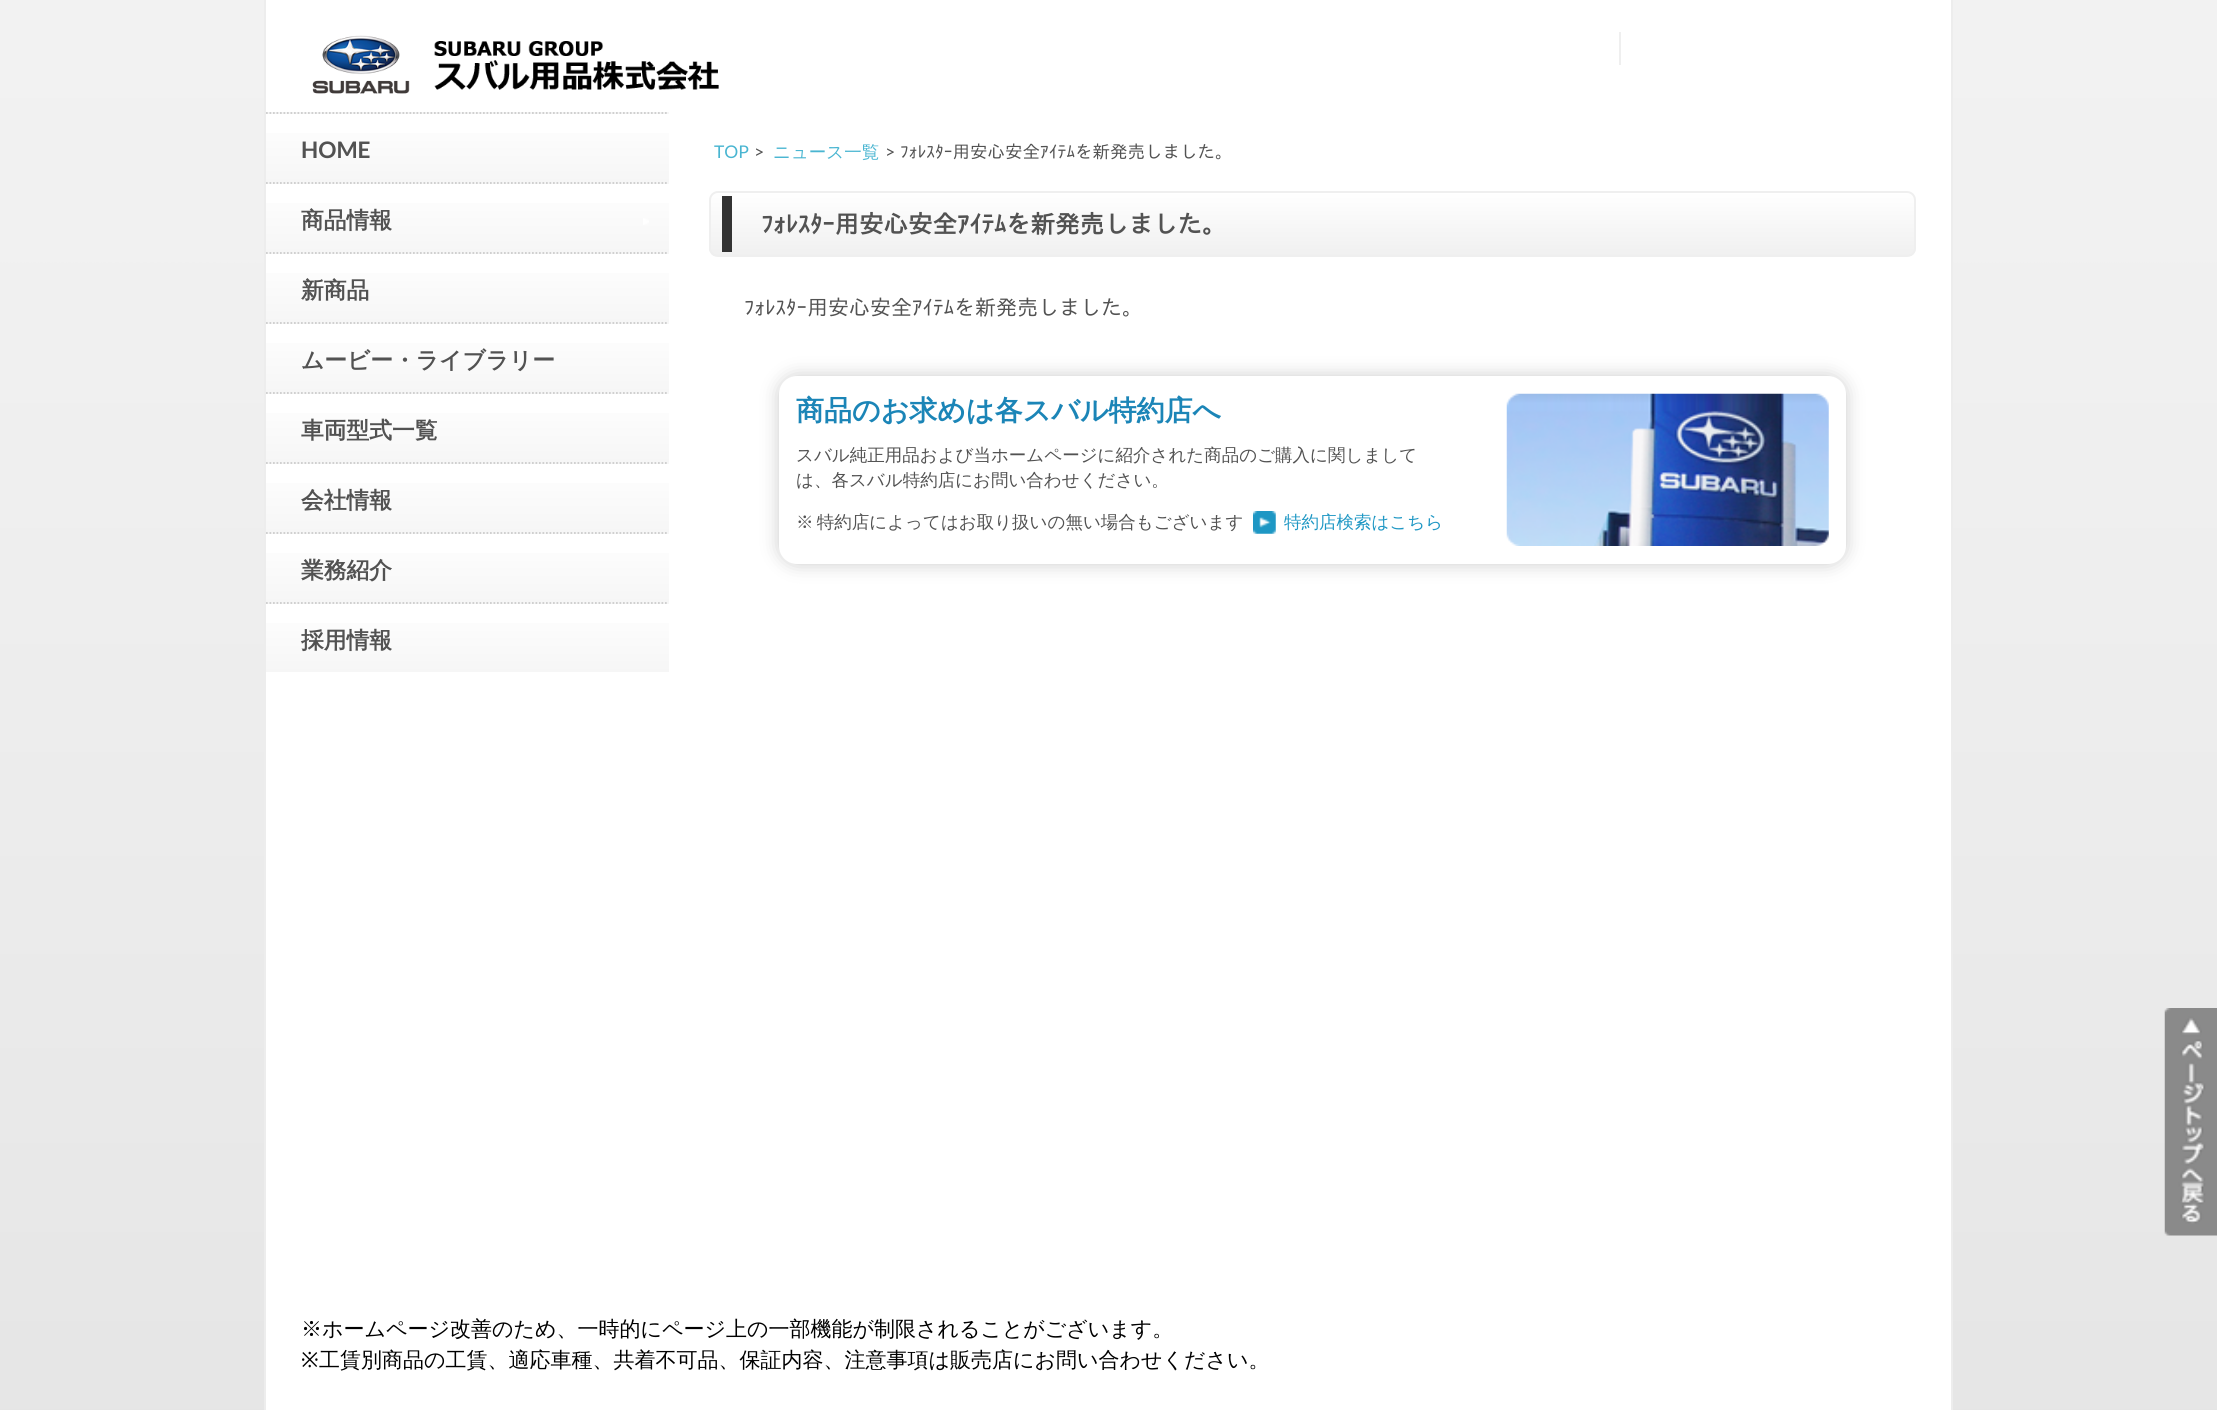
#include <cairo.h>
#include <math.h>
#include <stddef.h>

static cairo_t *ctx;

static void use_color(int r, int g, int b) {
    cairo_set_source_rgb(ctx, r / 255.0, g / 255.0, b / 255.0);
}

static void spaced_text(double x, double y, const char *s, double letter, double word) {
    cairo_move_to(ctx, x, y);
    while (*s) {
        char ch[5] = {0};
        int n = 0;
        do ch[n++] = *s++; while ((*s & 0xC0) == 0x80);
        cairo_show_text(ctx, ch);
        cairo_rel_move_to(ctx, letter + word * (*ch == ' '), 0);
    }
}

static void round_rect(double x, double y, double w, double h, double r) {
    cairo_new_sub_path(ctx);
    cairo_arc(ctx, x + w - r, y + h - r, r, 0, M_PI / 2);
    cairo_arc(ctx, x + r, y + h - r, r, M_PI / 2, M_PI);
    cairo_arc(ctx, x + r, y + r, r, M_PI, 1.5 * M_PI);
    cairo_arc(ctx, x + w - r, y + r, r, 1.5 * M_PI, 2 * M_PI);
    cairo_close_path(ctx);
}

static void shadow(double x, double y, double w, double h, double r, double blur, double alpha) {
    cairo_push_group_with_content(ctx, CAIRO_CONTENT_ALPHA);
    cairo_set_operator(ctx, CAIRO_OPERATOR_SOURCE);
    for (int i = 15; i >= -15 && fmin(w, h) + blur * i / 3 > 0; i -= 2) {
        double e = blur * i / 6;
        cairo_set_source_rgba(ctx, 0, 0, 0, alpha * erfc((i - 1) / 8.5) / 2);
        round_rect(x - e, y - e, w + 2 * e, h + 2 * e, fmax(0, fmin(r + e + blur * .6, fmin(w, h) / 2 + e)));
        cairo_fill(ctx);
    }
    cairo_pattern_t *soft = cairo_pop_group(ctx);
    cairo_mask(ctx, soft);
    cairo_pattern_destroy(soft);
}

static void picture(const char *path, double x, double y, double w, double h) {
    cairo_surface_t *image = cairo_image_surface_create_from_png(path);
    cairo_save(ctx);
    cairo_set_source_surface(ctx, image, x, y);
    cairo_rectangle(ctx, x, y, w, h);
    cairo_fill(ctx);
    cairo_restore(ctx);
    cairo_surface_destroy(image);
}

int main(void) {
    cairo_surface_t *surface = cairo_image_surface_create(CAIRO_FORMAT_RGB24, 2217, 1410);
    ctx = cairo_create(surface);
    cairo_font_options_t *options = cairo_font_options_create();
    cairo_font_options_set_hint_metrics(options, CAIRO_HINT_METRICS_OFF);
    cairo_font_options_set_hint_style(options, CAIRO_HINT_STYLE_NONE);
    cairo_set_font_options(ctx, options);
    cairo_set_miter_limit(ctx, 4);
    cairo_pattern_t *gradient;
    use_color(255, 255, 255);
    cairo_paint(ctx);
    picture("img1.png", 0, 0, 2217, 1410);
    use_color(255, 255, 255);
    cairo_rectangle(ctx, 266, 0, 1685, 1410);
    cairo_fill(ctx);
    use_color(237, 237, 237);
    cairo_rectangle(ctx, 1951, 0, 2, 1410);
    cairo_fill(ctx);
    cairo_rectangle(ctx, 264, 0, 2, 1410);
    cairo_fill(ctx);
    picture("img2.png", 312, 35, 407, 59);
    use_color(239, 239, 239);
    cairo_rectangle(ctx, 1619, 32, 2, 33);
    cairo_fill(ctx);
    gradient = cairo_pattern_create_linear(467, 45, 467, 114);
    cairo_pattern_add_color_stop_rgba(gradient, 0, 1, 1, 1, 1);
    cairo_pattern_add_color_stop_rgba(gradient, 1, 0.965, 0.965, 0.965, 1);
    cairo_set_source(ctx, gradient);
    cairo_pattern_destroy(gradient);
    cairo_rectangle(ctx, 266, 112, 403, 2);
    cairo_fill(ctx);
    gradient = cairo_pattern_create_linear(467, 114, 467, 182);
    cairo_pattern_add_color_stop_rgba(gradient, 0, 1, 1, 1, 1);
    cairo_pattern_add_color_stop_rgba(gradient, 1, 0.965, 0.965, 0.965, 1);
    cairo_set_source(ctx, gradient);
    cairo_pattern_destroy(gradient);
    cairo_rectangle(ctx, 266, 133, 403, 49);
    cairo_fill(ctx);
    cairo_new_path(ctx);
    cairo_move_to(ctx, 266, 113);
    cairo_line_to(ctx, 668.5, 113);
    use_color(204, 204, 204);
    cairo_set_line_width(ctx, 1.8);
    cairo_set_dash(ctx, (double[]){1.75, 1.75}, 2, 0);
    cairo_stroke(ctx);
    cairo_select_font_face(ctx, "Lato", CAIRO_FONT_SLANT_NORMAL, CAIRO_FONT_WEIGHT_BOLD);
    cairo_set_font_size(ctx, 22.75);
    use_color(82, 82, 82);
    cairo_move_to(ctx, 301, 158);
    cairo_show_text(ctx, "HOME");
    gradient = cairo_pattern_create_linear(467, 115, 467, 184);
    cairo_pattern_add_color_stop_rgba(gradient, 0, 1, 1, 1, 1);
    cairo_pattern_add_color_stop_rgba(gradient, 1, 0.965, 0.965, 0.965, 1);
    cairo_set_source(ctx, gradient);
    cairo_pattern_destroy(gradient);
    cairo_rectangle(ctx, 266, 182, 403, 2);
    cairo_fill(ctx);
    gradient = cairo_pattern_create_linear(467, 184, 467, 252);
    cairo_pattern_add_color_stop_rgba(gradient, 0, 1, 1, 1, 1);
    cairo_pattern_add_color_stop_rgba(gradient, 1, 0.965, 0.965, 0.965, 1);
    cairo_set_source(ctx, gradient);
    cairo_pattern_destroy(gradient);
    cairo_rectangle(ctx, 266, 203, 403, 49);
    cairo_fill(ctx);
    cairo_new_path(ctx);
    cairo_move_to(ctx, 266, 183);
    cairo_line_to(ctx, 668.5, 183);
    use_color(204, 204, 204);
    cairo_stroke(ctx);
    cairo_select_font_face(ctx, "WenQuanYi Zen Hei", CAIRO_FONT_SLANT_NORMAL, CAIRO_FONT_WEIGHT_BOLD);
    use_color(82, 82, 82);
    cairo_move_to(ctx, 301, 228);
    cairo_show_text(ctx, "商品情報");
    picture("img3.png", 643, 218, 6, 7);
    gradient = cairo_pattern_create_linear(467, 185, 467, 254);
    cairo_pattern_add_color_stop_rgba(gradient, 0, 1, 1, 1, 1);
    cairo_pattern_add_color_stop_rgba(gradient, 1, 0.965, 0.965, 0.965, 1);
    cairo_set_source(ctx, gradient);
    cairo_pattern_destroy(gradient);
    cairo_rectangle(ctx, 266, 252, 403, 2);
    cairo_fill(ctx);
    gradient = cairo_pattern_create_linear(467, 254, 467, 322);
    cairo_pattern_add_color_stop_rgba(gradient, 0, 1, 1, 1, 1);
    cairo_pattern_add_color_stop_rgba(gradient, 1, 0.965, 0.965, 0.965, 1);
    cairo_set_source(ctx, gradient);
    cairo_pattern_destroy(gradient);
    cairo_rectangle(ctx, 266, 273, 403, 49);
    cairo_fill(ctx);
    cairo_new_path(ctx);
    cairo_move_to(ctx, 266, 253);
    cairo_line_to(ctx, 668.5, 253);
    use_color(204, 204, 204);
    cairo_stroke(ctx);
    use_color(82, 82, 82);
    cairo_move_to(ctx, 301, 298);
    cairo_show_text(ctx, "新商品");
    gradient = cairo_pattern_create_linear(467, 256, 467, 324);
    cairo_pattern_add_color_stop_rgba(gradient, 0, 1, 1, 1, 1);
    cairo_pattern_add_color_stop_rgba(gradient, 1, 0.965, 0.965, 0.965, 1);
    cairo_set_source(ctx, gradient);
    cairo_pattern_destroy(gradient);
    cairo_rectangle(ctx, 266, 322, 403, 2);
    cairo_fill(ctx);
    gradient = cairo_pattern_create_linear(467, 324, 467, 392);
    cairo_pattern_add_color_stop_rgba(gradient, 0, 1, 1, 1, 1);
    cairo_pattern_add_color_stop_rgba(gradient, 1, 0.965, 0.965, 0.965, 1);
    cairo_set_source(ctx, gradient);
    cairo_pattern_destroy(gradient);
    cairo_rectangle(ctx, 266, 343, 403, 49);
    cairo_fill(ctx);
    cairo_new_path(ctx);
    cairo_move_to(ctx, 266, 323);
    cairo_line_to(ctx, 668.5, 323);
    use_color(204, 204, 204);
    cairo_stroke(ctx);
    use_color(82, 82, 82);
    cairo_move_to(ctx, 301, 368);
    cairo_show_text(ctx, "ムービー・ライブラリー");
    gradient = cairo_pattern_create_linear(467, 326, 467, 394);
    cairo_pattern_add_color_stop_rgba(gradient, 0, 1, 1, 1, 1);
    cairo_pattern_add_color_stop_rgba(gradient, 1, 0.965, 0.965, 0.965, 1);
    cairo_set_source(ctx, gradient);
    cairo_pattern_destroy(gradient);
    cairo_rectangle(ctx, 266, 392, 403, 2);
    cairo_fill(ctx);
    gradient = cairo_pattern_create_linear(467, 394, 467, 462);
    cairo_pattern_add_color_stop_rgba(gradient, 0, 1, 1, 1, 1);
    cairo_pattern_add_color_stop_rgba(gradient, 1, 0.965, 0.965, 0.965, 1);
    cairo_set_source(ctx, gradient);
    cairo_pattern_destroy(gradient);
    cairo_rectangle(ctx, 266, 413, 403, 49);
    cairo_fill(ctx);
    cairo_new_path(ctx);
    cairo_move_to(ctx, 266, 393);
    cairo_line_to(ctx, 668.5, 393);
    use_color(204, 204, 204);
    cairo_stroke(ctx);
    use_color(82, 82, 82);
    cairo_move_to(ctx, 301, 438);
    cairo_show_text(ctx, "車両型式一覧");
    gradient = cairo_pattern_create_linear(467, 396, 467, 464);
    cairo_pattern_add_color_stop_rgba(gradient, 0, 1, 1, 1, 1);
    cairo_pattern_add_color_stop_rgba(gradient, 1, 0.965, 0.965, 0.965, 1);
    cairo_set_source(ctx, gradient);
    cairo_pattern_destroy(gradient);
    cairo_rectangle(ctx, 266, 462, 403, 2);
    cairo_fill(ctx);
    gradient = cairo_pattern_create_linear(467, 464, 467, 532);
    cairo_pattern_add_color_stop_rgba(gradient, 0, 1, 1, 1, 1);
    cairo_pattern_add_color_stop_rgba(gradient, 1, 0.965, 0.965, 0.965, 1);
    cairo_set_source(ctx, gradient);
    cairo_pattern_destroy(gradient);
    cairo_rectangle(ctx, 266, 483, 403, 49);
    cairo_fill(ctx);
    cairo_new_path(ctx);
    cairo_move_to(ctx, 266, 463);
    cairo_line_to(ctx, 668.5, 463);
    use_color(204, 204, 204);
    cairo_stroke(ctx);
    use_color(82, 82, 82);
    cairo_move_to(ctx, 301, 508);
    cairo_show_text(ctx, "会社情報");
    gradient = cairo_pattern_create_linear(467, 466, 467, 534);
    cairo_pattern_add_color_stop_rgba(gradient, 0, 1, 1, 1, 1);
    cairo_pattern_add_color_stop_rgba(gradient, 1, 0.965, 0.965, 0.965, 1);
    cairo_set_source(ctx, gradient);
    cairo_pattern_destroy(gradient);
    cairo_rectangle(ctx, 266, 532, 403, 2);
    cairo_fill(ctx);
    gradient = cairo_pattern_create_linear(467, 534, 467, 602);
    cairo_pattern_add_color_stop_rgba(gradient, 0, 1, 1, 1, 1);
    cairo_pattern_add_color_stop_rgba(gradient, 1, 0.965, 0.965, 0.965, 1);
    cairo_set_source(ctx, gradient);
    cairo_pattern_destroy(gradient);
    cairo_rectangle(ctx, 266, 553, 403, 49);
    cairo_fill(ctx);
    cairo_new_path(ctx);
    cairo_move_to(ctx, 266, 533);
    cairo_line_to(ctx, 668.5, 533);
    use_color(204, 204, 204);
    cairo_stroke(ctx);
    use_color(82, 82, 82);
    cairo_move_to(ctx, 301, 578);
    cairo_show_text(ctx, "業務紹介");
    gradient = cairo_pattern_create_linear(467, 536, 467, 604);
    cairo_pattern_add_color_stop_rgba(gradient, 0, 1, 1, 1, 1);
    cairo_pattern_add_color_stop_rgba(gradient, 1, 0.965, 0.965, 0.965, 1);
    cairo_set_source(ctx, gradient);
    cairo_pattern_destroy(gradient);
    cairo_rectangle(ctx, 266, 602, 403, 2);
    cairo_fill(ctx);
    gradient = cairo_pattern_create_linear(467, 604, 467, 672);
    cairo_pattern_add_color_stop_rgba(gradient, 0, 1, 1, 1, 1);
    cairo_pattern_add_color_stop_rgba(gradient, 1, 0.965, 0.965, 0.965, 1);
    cairo_set_source(ctx, gradient);
    cairo_pattern_destroy(gradient);
    cairo_rectangle(ctx, 266, 623, 403, 49);
    cairo_fill(ctx);
    cairo_new_path(ctx);
    cairo_move_to(ctx, 266, 603);
    cairo_line_to(ctx, 668.5, 603);
    use_color(204, 204, 204);
    cairo_stroke(ctx);
    use_color(82, 82, 82);
    cairo_move_to(ctx, 301, 648);
    cairo_show_text(ctx, "採用情報");
    cairo_select_font_face(ctx, "Lato", CAIRO_FONT_SLANT_NORMAL, CAIRO_FONT_WEIGHT_NORMAL);
    cairo_set_font_size(ctx, 17.5);
    use_color(73, 181, 209);
    cairo_move_to(ctx, 714, 158);
    cairo_show_text(ctx, "TOP");
    use_color(82, 82, 82);
    cairo_move_to(ctx, 754, 158);
    cairo_show_text(ctx, ">");
    cairo_select_font_face(ctx, "WenQuanYi Zen Hei Medium", CAIRO_FONT_SLANT_NORMAL, CAIRO_FONT_WEIGHT_NORMAL);
    use_color(73, 181, 209);
    cairo_move_to(ctx, 773, 158);
    cairo_show_text(ctx, "ニュース一覧");
    cairo_select_font_face(ctx, "Lato", CAIRO_FONT_SLANT_NORMAL, CAIRO_FONT_WEIGHT_NORMAL);
    use_color(82, 82, 82);
    cairo_move_to(ctx, 885, 158);
    cairo_show_text(ctx, ">");
    cairo_select_font_face(ctx, "IPAGothic", CAIRO_FONT_SLANT_NORMAL, CAIRO_FONT_WEIGHT_NORMAL);
    cairo_move_to(ctx, 900, 158);
    cairo_show_text(ctx, "ﾌｫﾚｽﾀｰ用安心安全ｱｲﾃﾑを新発売しました。");
    cairo_save(ctx);
    round_rect(709, 191, 1207, 66, 9);
    cairo_clip(ctx);
    gradient = cairo_pattern_create_linear(1313, 192, 1313, 256);
    cairo_pattern_add_color_stop_rgba(gradient, 0, 1, 1, 1, 1);
    cairo_pattern_add_color_stop_rgba(gradient, 1, 0.941, 0.941, 0.941, 1);
    cairo_set_source(ctx, gradient);
    cairo_pattern_destroy(gradient);
    cairo_rectangle(ctx, 709, 193, 1207, 63);
    cairo_fill(ctx);
    cairo_restore(ctx);
    round_rect(710, 192, 1205, 64, 8);
    use_color(239, 239, 239);
    cairo_set_line_width(ctx, 2);
    cairo_set_dash(ctx, NULL, 0, 0);
    cairo_stroke(ctx);
    use_color(51, 51, 51);
    cairo_rectangle(ctx, 722, 196, 10, 56);
    cairo_fill(ctx);
    cairo_select_font_face(ctx, "IPAGothic", CAIRO_FONT_SLANT_NORMAL, CAIRO_FONT_WEIGHT_BOLD);
    cairo_set_font_size(ctx, 24.5);
    use_color(82, 82, 82);
    cairo_move_to(ctx, 761, 233);
    cairo_show_text(ctx, "ﾌｫﾚｽﾀｰ用安心安全ｱｲﾃﾑを新発売しました。");
    cairo_select_font_face(ctx, "IPAGothic", CAIRO_FONT_SLANT_NORMAL, CAIRO_FONT_WEIGHT_NORMAL);
    cairo_set_font_size(ctx, 21);
    cairo_move_to(ctx, 744, 315);
    cairo_show_text(ctx, "ﾌｫﾚｽﾀｰ用安心安全ｱｲﾃﾑを新発売しました。");
    use_color(204, 204, 204);
    shadow(779, 376, 1067, 188, 18, 9, 1);
    use_color(255, 255, 255);
    round_rect(779, 376, 1067, 188, 18);
    cairo_fill(ctx);
    cairo_select_font_face(ctx, "WenQuanYi Zen Hei", CAIRO_FONT_SLANT_NORMAL, CAIRO_FONT_WEIGHT_BOLD);
    cairo_set_font_size(ctx, 28);
    use_color(27, 133, 183);
    cairo_move_to(ctx, 796, 420);
    cairo_show_text(ctx, "商品のお求めは各スバル特約店へ");
    cairo_select_font_face(ctx, "WenQuanYi Zen Hei Medium", CAIRO_FONT_SLANT_NORMAL, CAIRO_FONT_WEIGHT_NORMAL);
    cairo_set_font_size(ctx, 17.5);
    use_color(82, 82, 82);
    cairo_move_to(ctx, 796, 461);
    cairo_show_text(ctx, "スバル純正用品および当ホームページに紹介された商品のご購入に関しまして");
    cairo_move_to(ctx, 796, 486);
    cairo_show_text(ctx, "は、各スバル特約店にお問い合わせください。");
    spaced_text(796, 528, "※ 特約店によってはお取り扱いの無い場合もございます", 0, -2);
    picture("img4.png", 1253, 511, 23, 23);
    use_color(30, 151, 196);
    cairo_move_to(ctx, 1284, 528);
    cairo_show_text(ctx, "特約店検索はこちら");
    picture("img5.png", 1506, 393, 323, 153);
    picture("img6.png", 2164, 1008, 53, 228);
    cairo_set_font_size(ctx, 21);
    use_color(0, 0, 0);
    cairo_move_to(ctx, 301, 1336);
    cairo_show_text(ctx, "※ホームページ改善のため、一時的にページ上の一部機能が制限されることがございます。");
    cairo_select_font_face(ctx, "Noto Sans", CAIRO_FONT_SLANT_NORMAL, CAIRO_FONT_WEIGHT_NORMAL);
    cairo_move_to(ctx, 301, 1367);
    cairo_show_text(ctx, "※");
    cairo_select_font_face(ctx, "WenQuanYi Zen Hei Medium", CAIRO_FONT_SLANT_NORMAL, CAIRO_FONT_WEIGHT_NORMAL);
    cairo_move_to(ctx, 319, 1367);
    cairo_show_text(ctx, "工賃別商品の工賃、適応車種、共着不可品、保証内容、注意事項は販売店にお問い合わせください。");
    cairo_surface_write_to_png(surface, "result.png");
    cairo_font_options_destroy(options);
    cairo_destroy(ctx);
    cairo_surface_destroy(surface);
    return 0;
}
